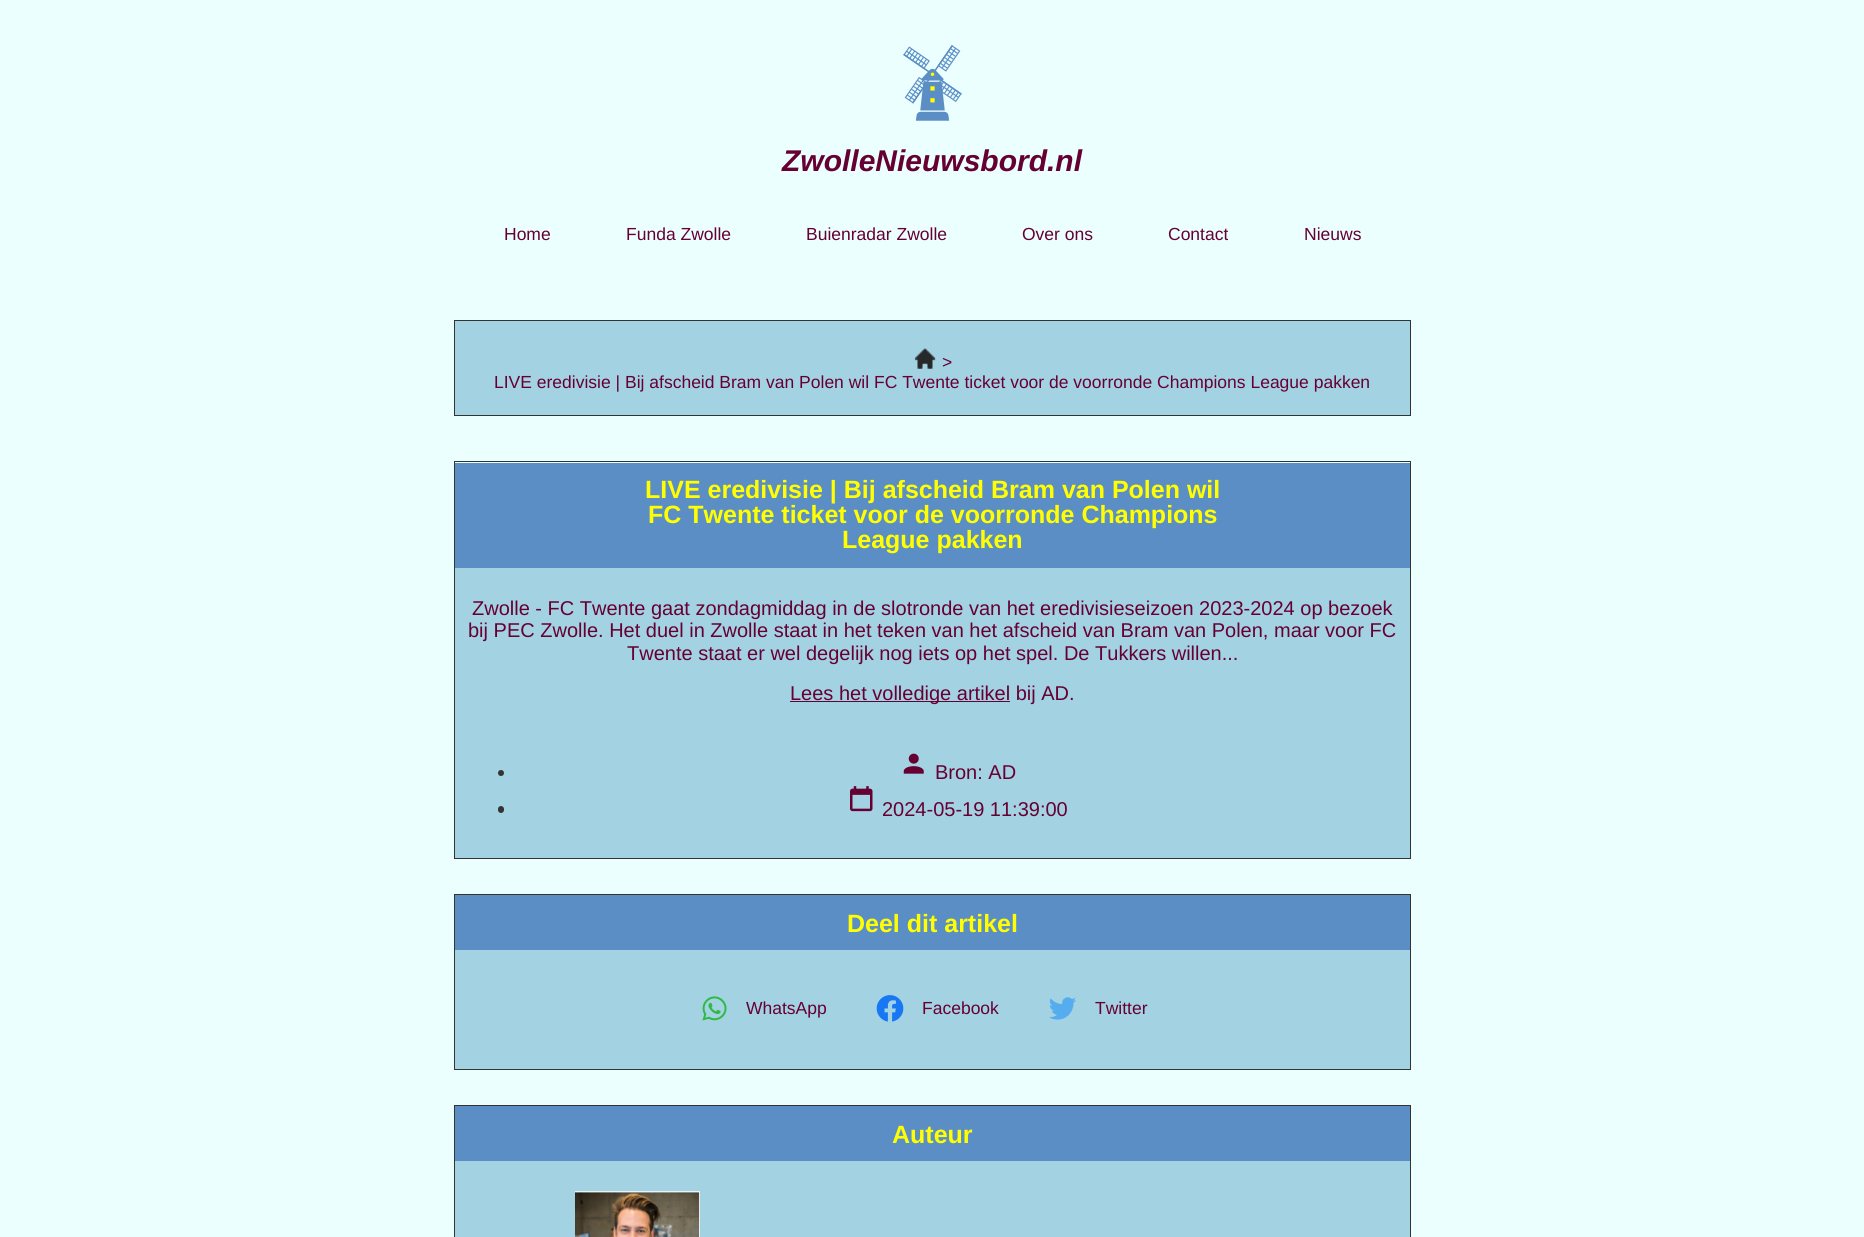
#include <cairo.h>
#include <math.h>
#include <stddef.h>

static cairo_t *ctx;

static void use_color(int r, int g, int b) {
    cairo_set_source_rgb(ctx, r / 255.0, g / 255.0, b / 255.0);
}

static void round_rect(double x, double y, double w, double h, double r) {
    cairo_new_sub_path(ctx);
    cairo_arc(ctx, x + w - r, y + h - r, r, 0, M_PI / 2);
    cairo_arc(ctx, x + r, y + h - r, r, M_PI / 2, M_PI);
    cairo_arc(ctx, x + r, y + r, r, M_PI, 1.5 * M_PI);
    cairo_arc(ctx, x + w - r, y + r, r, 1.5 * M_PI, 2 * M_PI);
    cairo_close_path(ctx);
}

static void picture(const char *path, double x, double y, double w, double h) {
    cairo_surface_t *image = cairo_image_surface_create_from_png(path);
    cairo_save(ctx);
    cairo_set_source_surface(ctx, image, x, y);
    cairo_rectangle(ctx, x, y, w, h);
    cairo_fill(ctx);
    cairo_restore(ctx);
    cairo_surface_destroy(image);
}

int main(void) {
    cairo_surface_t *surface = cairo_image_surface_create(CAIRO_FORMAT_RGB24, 1864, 1237);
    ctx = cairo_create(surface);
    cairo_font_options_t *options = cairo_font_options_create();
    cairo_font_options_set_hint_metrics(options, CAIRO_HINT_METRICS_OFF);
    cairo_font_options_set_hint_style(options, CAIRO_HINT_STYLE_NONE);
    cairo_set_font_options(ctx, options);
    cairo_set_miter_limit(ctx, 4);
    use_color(235, 255, 255);
    cairo_paint(ctx);
    picture("img1.png", 903, 45, 59, 76);
    cairo_select_font_face(ctx, "Liberation Sans", CAIRO_FONT_SLANT_ITALIC, CAIRO_FONT_WEIGHT_BOLD);
    cairo_set_font_size(ctx, 30);
    use_color(102, 0, 51);
    cairo_move_to(ctx, 782, 171);
    cairo_show_text(ctx, "ZwolleNieuwsbord.nl");
    cairo_select_font_face(ctx, "Liberation Sans", CAIRO_FONT_SLANT_NORMAL, CAIRO_FONT_WEIGHT_NORMAL);
    cairo_set_font_size(ctx, 17.5);
    cairo_move_to(ctx, 504, 240);
    cairo_show_text(ctx, "Home");
    cairo_move_to(ctx, 626, 240);
    cairo_show_text(ctx, "Funda Zwolle");
    cairo_move_to(ctx, 806, 240);
    cairo_show_text(ctx, "Buienradar Zwolle");
    cairo_move_to(ctx, 1022, 240);
    cairo_show_text(ctx, "Over ons");
    cairo_move_to(ctx, 1168, 240);
    cairo_show_text(ctx, "Contact");
    cairo_move_to(ctx, 1304, 240);
    cairo_show_text(ctx, "Nieuws");
    use_color(163, 210, 226);
    cairo_rectangle(ctx, 454.5, 320.5, 956, 95);
    cairo_fill_preserve(ctx);
    use_color(51, 51, 51);
    cairo_set_line_width(ctx, 1);
    cairo_stroke(ctx);
    picture("img2.png", 914, 348, 22, 21);
    use_color(102, 0, 51);
    cairo_move_to(ctx, 942, 368);
    cairo_show_text(ctx, ">");
    cairo_move_to(ctx, 494, 388);
    cairo_show_text(ctx, "LIVE eredivisie | Bij afscheid Bram van Polen wil FC Twente ticket voor de voorronde Champions League pakken");
    use_color(91, 142, 197);
    cairo_rectangle(ctx, 455, 463, 955, 105);
    cairo_fill(ctx);
    use_color(51, 51, 51);
    cairo_rectangle(ctx, 454, 461, 957, 1);
    cairo_fill(ctx);
    cairo_rectangle(ctx, 1410, 461, 1, 398);
    cairo_fill(ctx);
    cairo_rectangle(ctx, 454, 461, 1, 107);
    cairo_fill(ctx);
    cairo_select_font_face(ctx, "Liberation Sans", CAIRO_FONT_SLANT_NORMAL, CAIRO_FONT_WEIGHT_BOLD);
    cairo_set_font_size(ctx, 25);
    use_color(255, 255, 0);
    cairo_move_to(ctx, 645, 498);
    cairo_show_text(ctx, "LIVE eredivisie | Bij afscheid Bram van Polen wil");
    cairo_move_to(ctx, 648, 523);
    cairo_show_text(ctx, "FC Twente ticket voor de voorronde Champions");
    cairo_move_to(ctx, 842, 548);
    cairo_show_text(ctx, "League pakken");
    use_color(163, 210, 226);
    cairo_rectangle(ctx, 455, 568, 955, 290);
    cairo_fill(ctx);
    use_color(51, 51, 51);
    cairo_rectangle(ctx, 454, 858, 957, 1);
    cairo_fill(ctx);
    cairo_rectangle(ctx, 454, 568, 1, 291);
    cairo_fill(ctx);
    cairo_select_font_face(ctx, "Liberation Sans", CAIRO_FONT_SLANT_NORMAL, CAIRO_FONT_WEIGHT_NORMAL);
    cairo_set_font_size(ctx, 20);
    use_color(102, 0, 51);
    cairo_move_to(ctx, 472, 615);
    cairo_show_text(ctx, "Zwolle - FC Twente gaat zondagmiddag in de slotronde van het eredivisieseizoen 2023-2024 op bezoek");
    cairo_move_to(ctx, 468, 637);
    cairo_show_text(ctx, "bij PEC Zwolle. Het duel in Zwolle staat in het teken van het afscheid van Bram van Polen, maar voor FC");
    cairo_move_to(ctx, 627, 660);
    cairo_show_text(ctx, "Twente staat er wel degelijk nog iets op het spel. De Tukkers willen...");
    cairo_rectangle(ctx, 790, 701, 220, 1);
    cairo_fill(ctx);
    cairo_move_to(ctx, 790, 700);
    cairo_show_text(ctx, "Lees het volledige artikel bij AD.");
    use_color(51, 51, 51);
    cairo_new_path(ctx);
    cairo_arc(ctx, 501, 773, 3, 0, 2 * M_PI);
    cairo_fill(ctx);
    picture("img3.png", 903, 753, 21, 21);
    use_color(102, 0, 51);
    cairo_move_to(ctx, 935, 779);
    cairo_show_text(ctx, "Bron: AD");
    use_color(51, 51, 51);
    round_rect(498, 806, 6, 7, 3);
    cairo_fill(ctx);
    picture("img4.png", 850, 786, 23, 26);
    use_color(102, 0, 51);
    cairo_move_to(ctx, 882, 816);
    cairo_show_text(ctx, "2024-05-19 11:39:00");
    use_color(91, 142, 197);
    cairo_rectangle(ctx, 455, 895, 955, 55);
    cairo_fill(ctx);
    use_color(51, 51, 51);
    cairo_rectangle(ctx, 454, 894, 957, 1);
    cairo_fill(ctx);
    cairo_rectangle(ctx, 1410, 894, 1, 176);
    cairo_fill(ctx);
    cairo_rectangle(ctx, 454, 894, 1, 56);
    cairo_fill(ctx);
    cairo_select_font_face(ctx, "Liberation Sans", CAIRO_FONT_SLANT_NORMAL, CAIRO_FONT_WEIGHT_BOLD);
    cairo_set_font_size(ctx, 25);
    use_color(255, 255, 0);
    cairo_move_to(ctx, 847, 932);
    cairo_show_text(ctx, "Deel dit artikel");
    use_color(163, 210, 226);
    cairo_rectangle(ctx, 455, 950, 955, 119);
    cairo_fill(ctx);
    use_color(51, 51, 51);
    cairo_rectangle(ctx, 454, 1069, 957, 1);
    cairo_fill(ctx);
    cairo_rectangle(ctx, 454, 950, 1, 120);
    cairo_fill(ctx);
    picture("img5.png", 702, 996, 25, 25);
    cairo_select_font_face(ctx, "Liberation Sans", CAIRO_FONT_SLANT_NORMAL, CAIRO_FONT_WEIGHT_NORMAL);
    cairo_set_font_size(ctx, 17.5);
    use_color(102, 0, 51);
    cairo_move_to(ctx, 746, 1014);
    cairo_show_text(ctx, "WhatsApp");
    picture("img6.png", 876, 995, 28, 27);
    cairo_move_to(ctx, 922, 1014);
    cairo_show_text(ctx, "Facebook");
    picture("img7.png", 1049, 997, 27, 23);
    cairo_move_to(ctx, 1095, 1014);
    cairo_show_text(ctx, "Twitter");
    use_color(91, 142, 197);
    cairo_rectangle(ctx, 455, 1106, 955, 55);
    cairo_fill(ctx);
    use_color(51, 51, 51);
    cairo_rectangle(ctx, 454, 1105, 957, 1);
    cairo_fill(ctx);
    cairo_rectangle(ctx, 1410, 1105, 1, 132);
    cairo_fill(ctx);
    cairo_rectangle(ctx, 454, 1105, 1, 132);
    cairo_fill(ctx);
    cairo_select_font_face(ctx, "Liberation Sans", CAIRO_FONT_SLANT_NORMAL, CAIRO_FONT_WEIGHT_BOLD);
    cairo_set_font_size(ctx, 25);
    use_color(255, 255, 0);
    cairo_move_to(ctx, 892, 1143);
    cairo_show_text(ctx, "Auteur");
    use_color(163, 210, 226);
    cairo_rectangle(ctx, 455, 1161, 955, 76);
    cairo_fill(ctx);
    picture("img8.png", 575, 1191, 125, 46);
    cairo_surface_write_to_png(surface, "result.png");
    cairo_font_options_destroy(options);
    cairo_destroy(ctx);
    cairo_surface_destroy(surface);
    return 0;
}
